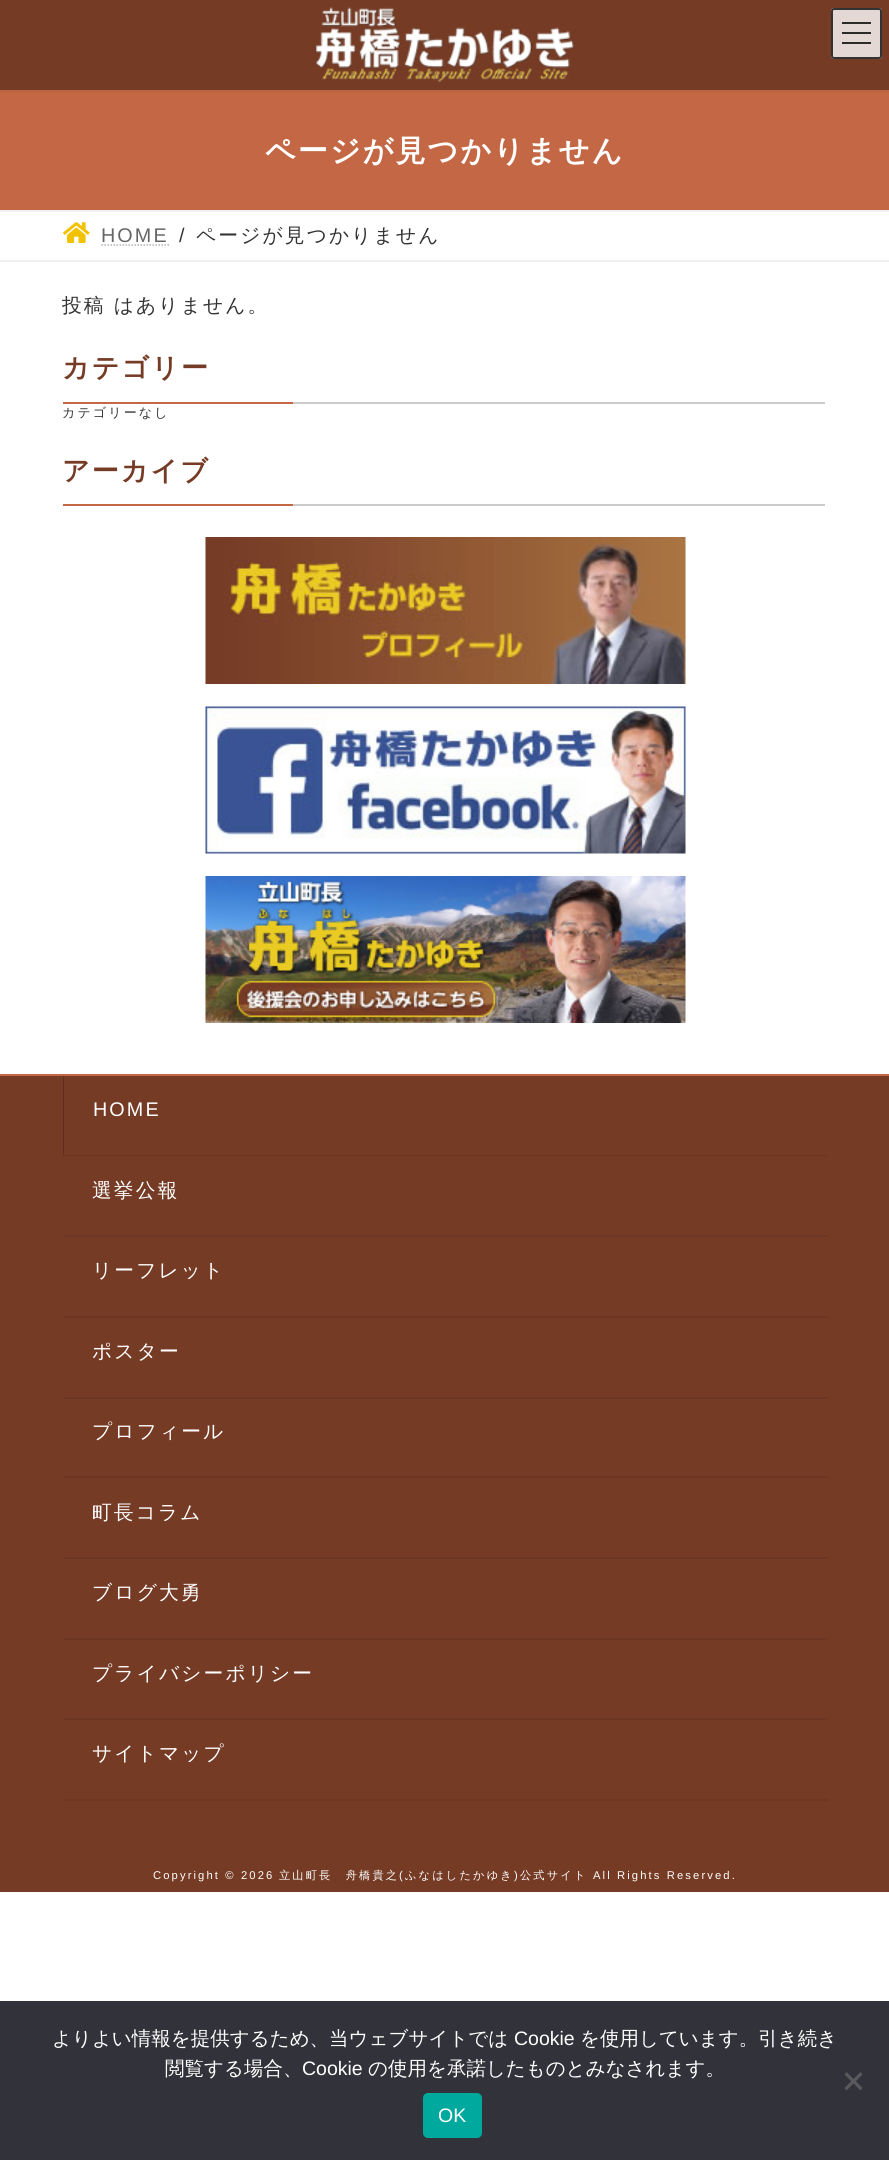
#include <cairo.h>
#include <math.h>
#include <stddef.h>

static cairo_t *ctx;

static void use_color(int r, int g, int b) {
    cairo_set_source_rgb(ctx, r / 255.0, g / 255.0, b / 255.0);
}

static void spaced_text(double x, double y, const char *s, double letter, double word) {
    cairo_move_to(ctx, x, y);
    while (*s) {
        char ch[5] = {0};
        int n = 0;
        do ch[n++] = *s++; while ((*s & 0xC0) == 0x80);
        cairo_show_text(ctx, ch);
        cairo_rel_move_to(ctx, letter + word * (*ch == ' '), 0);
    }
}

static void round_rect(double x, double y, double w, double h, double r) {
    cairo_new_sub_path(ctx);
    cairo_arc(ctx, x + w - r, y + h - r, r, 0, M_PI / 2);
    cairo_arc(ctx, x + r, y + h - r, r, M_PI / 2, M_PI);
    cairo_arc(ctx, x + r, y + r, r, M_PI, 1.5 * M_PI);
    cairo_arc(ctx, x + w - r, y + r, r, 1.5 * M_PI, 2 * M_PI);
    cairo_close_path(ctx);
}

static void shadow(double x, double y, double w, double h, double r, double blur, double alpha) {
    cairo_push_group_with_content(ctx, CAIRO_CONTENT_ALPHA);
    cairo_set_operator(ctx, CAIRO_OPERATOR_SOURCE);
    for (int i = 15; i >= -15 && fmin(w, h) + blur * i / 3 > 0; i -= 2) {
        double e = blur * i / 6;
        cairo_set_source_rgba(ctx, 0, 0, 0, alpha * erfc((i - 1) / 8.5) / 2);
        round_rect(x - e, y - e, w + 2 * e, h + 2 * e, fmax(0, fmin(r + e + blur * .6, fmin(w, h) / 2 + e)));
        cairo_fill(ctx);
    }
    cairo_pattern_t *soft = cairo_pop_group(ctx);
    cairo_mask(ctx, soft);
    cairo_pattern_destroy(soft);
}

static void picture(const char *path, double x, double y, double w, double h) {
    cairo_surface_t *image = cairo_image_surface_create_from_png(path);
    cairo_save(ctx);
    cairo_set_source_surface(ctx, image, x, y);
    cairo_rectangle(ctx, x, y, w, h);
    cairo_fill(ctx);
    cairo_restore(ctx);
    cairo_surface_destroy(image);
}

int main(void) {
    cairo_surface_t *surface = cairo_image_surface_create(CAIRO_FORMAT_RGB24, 889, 2160);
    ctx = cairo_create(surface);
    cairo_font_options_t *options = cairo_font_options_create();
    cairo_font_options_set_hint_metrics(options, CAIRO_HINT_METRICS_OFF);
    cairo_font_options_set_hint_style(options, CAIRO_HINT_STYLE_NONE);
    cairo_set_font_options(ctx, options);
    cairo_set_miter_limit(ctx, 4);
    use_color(255, 255, 255);
    cairo_paint(ctx);
    use_color(196, 103, 68);
    cairo_rectangle(ctx, 0, 90, 889, 120);
    cairo_fill(ctx);
    use_color(0, 0, 0);
    shadow(0, 2, 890, 90, 0, 2, 0.05);
    use_color(117, 59, 37);
    cairo_rectangle(ctx, 0, 0, 889, 90);
    cairo_fill(ctx);
    picture("img1.png", 315, 7, 260, 76);
    use_color(227, 216, 211);
    round_rect(831, 8, 51, 51, 3);
    cairo_fill(ctx);
    use_color(45, 43, 42);
    cairo_rectangle(ctx, 842, 22, 29, 2);
    cairo_fill(ctx);
    cairo_rectangle(ctx, 842, 32, 29, 2);
    cairo_fill(ctx);
    cairo_rectangle(ctx, 842, 42, 29, 2);
    cairo_fill(ctx);
    round_rect(832, 9, 49, 49, 2);
    use_color(51, 51, 51);
    cairo_stroke(ctx);
    cairo_select_font_face(ctx, "WenQuanYi Zen Hei", CAIRO_FONT_SLANT_NORMAL, CAIRO_FONT_WEIGHT_BOLD);
    cairo_set_font_size(ctx, 30);
    use_color(255, 255, 255);
    spaced_text(265, 161, "ページが見つかりません", 2.1, 0);
    use_color(240, 240, 240);
    cairo_rectangle(ctx, 0, 210, 889, 2);
    cairo_fill(ctx);
    cairo_rectangle(ctx, 0, 260, 889, 2);
    cairo_fill(ctx);
    picture("img2.png", 63, 222, 27, 21);
    cairo_select_font_face(ctx, "Liberation Sans", CAIRO_FONT_SLANT_NORMAL, CAIRO_FONT_WEIGHT_NORMAL);
    cairo_set_font_size(ctx, 19.75);
    use_color(102, 102, 102);
    spaced_text(101, 242, "HOME", 2.1, 0);
    cairo_new_path(ctx);
    cairo_move_to(ctx, 101.5, 245);
    cairo_line_to(ctx, 169, 245);
    use_color(179, 179, 179);
    cairo_set_line_width(ctx, 1.5);
    cairo_set_dash(ctx, (double[]){1.5, 1.5}, 2, 0);
    cairo_stroke(ctx);
    use_color(51, 51, 51);
    spaced_text(179, 242, "/", 2.1, 0);
    cairo_select_font_face(ctx, "WenQuanYi Zen Hei Medium", CAIRO_FONT_SLANT_NORMAL, CAIRO_FONT_WEIGHT_NORMAL);
    spaced_text(196, 242, "ページが見つかりません", 2.1, 0);
    spaced_text(62, 312, "投稿 はありません。", 2.1, 0);
    use_color(204, 204, 204);
    cairo_rectangle(ctx, 293, 402, 532, 2);
    cairo_fill(ctx);
    cairo_select_font_face(ctx, "WenQuanYi Zen Hei", CAIRO_FONT_SLANT_NORMAL, CAIRO_FONT_WEIGHT_BOLD);
    cairo_set_font_size(ctx, 27);
    use_color(117, 59, 37);
    spaced_text(62, 377, "カテゴリー", 2.1, 0);
    use_color(196, 103, 68);
    cairo_rectangle(ctx, 63, 402, 230, 2);
    cairo_fill(ctx);
    cairo_select_font_face(ctx, "WenQuanYi Zen Hei Medium", CAIRO_FONT_SLANT_NORMAL, CAIRO_FONT_WEIGHT_NORMAL);
    cairo_set_font_size(ctx, 13);
    use_color(51, 51, 51);
    spaced_text(62, 417, "カテゴリーなし", 2.1, 0);
    use_color(204, 204, 204);
    cairo_rectangle(ctx, 293, 504, 532, 2);
    cairo_fill(ctx);
    cairo_select_font_face(ctx, "WenQuanYi Zen Hei", CAIRO_FONT_SLANT_NORMAL, CAIRO_FONT_WEIGHT_BOLD);
    cairo_set_font_size(ctx, 27);
    use_color(117, 59, 37);
    spaced_text(62, 480, "アーカイブ", 2.1, 0);
    use_color(196, 103, 68);
    cairo_rectangle(ctx, 63, 504, 230, 2);
    cairo_fill(ctx);
    picture("img3.png", 205, 537, 481, 147);
    picture("img4.png", 205, 706, 481, 148);
    picture("img5.png", 205, 876, 481, 147);
    use_color(117, 59, 37);
    cairo_rectangle(ctx, 0, 1076, 889, 816);
    cairo_fill(ctx);
    use_color(196, 103, 68);
    cairo_rectangle(ctx, 0, 1074, 889, 2);
    cairo_fill(ctx);
    use_color(110, 55, 35);
    cairo_new_path(ctx);
    cairo_move_to(ctx, 828, 1156);
    cairo_line_to(ctx, 63, 1156);
    cairo_line_to(ctx, 64, 1155);
    cairo_line_to(ctx, 828, 1155);
    cairo_close_path(ctx);
    cairo_fill(ctx);
    cairo_set_source_rgba(ctx, 0, 0, 0, 0.2);
    cairo_new_path(ctx);
    cairo_move_to(ctx, 63, 1156);
    cairo_line_to(ctx, 63, 1076);
    cairo_line_to(ctx, 64, 1076);
    cairo_line_to(ctx, 64, 1155);
    cairo_close_path(ctx);
    cairo_fill(ctx);
    cairo_select_font_face(ctx, "Liberation Sans", CAIRO_FONT_SLANT_NORMAL, CAIRO_FONT_WEIGHT_NORMAL);
    cairo_set_font_size(ctx, 19.75);
    use_color(255, 255, 255);
    spaced_text(93, 1116, "HOME", 2.1, 0);
    use_color(110, 55, 35);
    cairo_rectangle(ctx, 63, 1235, 765, 2);
    cairo_fill(ctx);
    cairo_select_font_face(ctx, "WenQuanYi Zen Hei Medium", CAIRO_FONT_SLANT_NORMAL, CAIRO_FONT_WEIGHT_NORMAL);
    use_color(255, 255, 255);
    spaced_text(92, 1197, "選挙公報", 2.1, 0);
    use_color(110, 55, 35);
    cairo_rectangle(ctx, 63, 1316, 765, 2);
    cairo_fill(ctx);
    use_color(255, 255, 255);
    spaced_text(92, 1277, "リーフレット", 2.1, 0);
    use_color(110, 55, 35);
    cairo_rectangle(ctx, 63, 1397, 765, 2);
    cairo_fill(ctx);
    use_color(255, 255, 255);
    spaced_text(92, 1358, "ポスター", 2.1, 0);
    use_color(110, 55, 35);
    cairo_rectangle(ctx, 63, 1476, 765, 2);
    cairo_fill(ctx);
    use_color(255, 255, 255);
    spaced_text(92, 1438, "プロフィール", 2.1, 0);
    use_color(110, 55, 35);
    cairo_rectangle(ctx, 63, 1557, 765, 2);
    cairo_fill(ctx);
    use_color(255, 255, 255);
    spaced_text(92, 1519, "町長コラム", 2.1, 0);
    use_color(110, 55, 35);
    cairo_rectangle(ctx, 63, 1638, 765, 2);
    cairo_fill(ctx);
    use_color(255, 255, 255);
    spaced_text(92, 1599, "ブログ大勇", 2.1, 0);
    use_color(110, 55, 35);
    cairo_rectangle(ctx, 63, 1718, 765, 2);
    cairo_fill(ctx);
    use_color(255, 255, 255);
    spaced_text(92, 1680, "プライバシーポリシー", 2.1, 0);
    use_color(110, 55, 35);
    cairo_rectangle(ctx, 63, 1799, 765, 2);
    cairo_fill(ctx);
    use_color(255, 255, 255);
    spaced_text(92, 1760, "サイトマップ", 2.1, 0);
    cairo_select_font_face(ctx, "Liberation Sans", CAIRO_FONT_SLANT_NORMAL, CAIRO_FONT_WEIGHT_NORMAL);
    cairo_set_font_size(ctx, 11.25);
    spaced_text(153, 1879, "Copyright © 2026", 2.1, 0);
    cairo_select_font_face(ctx, "WenQuanYi Zen Hei Medium", CAIRO_FONT_SLANT_NORMAL, CAIRO_FONT_WEIGHT_NORMAL);
    spaced_text(279, 1879, "立山町長　舟橋貴之", 2.1, 0);
    cairo_select_font_face(ctx, "Liberation Sans", CAIRO_FONT_SLANT_NORMAL, CAIRO_FONT_WEIGHT_NORMAL);
    spaced_text(399, 1879, "(", 2.1, 0);
    cairo_select_font_face(ctx, "WenQuanYi Zen Hei Medium", CAIRO_FONT_SLANT_NORMAL, CAIRO_FONT_WEIGHT_NORMAL);
    spaced_text(405, 1879, "ふなはしたかゆき", 2.1, 0);
    cairo_select_font_face(ctx, "Liberation Sans", CAIRO_FONT_SLANT_NORMAL, CAIRO_FONT_WEIGHT_NORMAL);
    spaced_text(514, 1879, ")", 2.1, 0);
    cairo_select_font_face(ctx, "WenQuanYi Zen Hei Medium", CAIRO_FONT_SLANT_NORMAL, CAIRO_FONT_WEIGHT_NORMAL);
    spaced_text(520, 1879, "公式サイト", 2.1, 0);
    cairo_select_font_face(ctx, "Liberation Sans", CAIRO_FONT_SLANT_NORMAL, CAIRO_FONT_WEIGHT_NORMAL);
    spaced_text(593, 1879, "All Rights Reserved.", 2.1, 0);
    use_color(50, 50, 58);
    cairo_rectangle(ctx, 0, 2001, 889, 159);
    cairo_fill(ctx);
    cairo_select_font_face(ctx, "WenQuanYi Zen Hei Medium", CAIRO_FONT_SLANT_NORMAL, CAIRO_FONT_WEIGHT_NORMAL);
    cairo_set_font_size(ctx, 19.5);
    use_color(255, 255, 255);
    cairo_move_to(ctx, 52, 2045);
    cairo_show_text(ctx, "よりよい情報を提供するため、当ウェブサイトでは");
    cairo_select_font_face(ctx, "Liberation Sans", CAIRO_FONT_SLANT_NORMAL, CAIRO_FONT_WEIGHT_NORMAL);
    cairo_move_to(ctx, 514, 2045);
    cairo_show_text(ctx, "Cookie");
    cairo_select_font_face(ctx, "WenQuanYi Zen Hei Medium", CAIRO_FONT_SLANT_NORMAL, CAIRO_FONT_WEIGHT_NORMAL);
    cairo_move_to(ctx, 580, 2045);
    cairo_show_text(ctx, "を使用しています。引き続き");
    cairo_move_to(ctx, 165, 2075);
    cairo_show_text(ctx, "閲覧する場合、");
    cairo_select_font_face(ctx, "Liberation Sans", CAIRO_FONT_SLANT_NORMAL, CAIRO_FONT_WEIGHT_NORMAL);
    cairo_move_to(ctx, 302, 2075);
    cairo_show_text(ctx, "Cookie");
    cairo_select_font_face(ctx, "WenQuanYi Zen Hei Medium", CAIRO_FONT_SLANT_NORMAL, CAIRO_FONT_WEIGHT_NORMAL);
    cairo_move_to(ctx, 368, 2075);
    cairo_show_text(ctx, "の使用を承諾したものとみなされます。");
    use_color(89, 89, 93);
    cairo_new_path(ctx);
    cairo_move_to(ctx, 860.5, 2072);
    cairo_line_to(ctx, 862.5, 2074.5);
    cairo_line_to(ctx, 846.5, 2090.5);
    cairo_line_to(ctx, 844.5, 2088);
    cairo_close_path(ctx);
    cairo_fill(ctx);
    cairo_new_path(ctx);
    cairo_move_to(ctx, 844.5, 2074.5);
    cairo_line_to(ctx, 846.5, 2072);
    cairo_line_to(ctx, 862.5, 2088);
    cairo_line_to(ctx, 860.5, 2090.5);
    cairo_close_path(ctx);
    cairo_fill(ctx);
    use_color(0, 169, 157);
    round_rect(423, 2093, 59, 45, 5);
    cairo_fill(ctx);
    cairo_select_font_face(ctx, "Liberation Sans", CAIRO_FONT_SLANT_NORMAL, CAIRO_FONT_WEIGHT_NORMAL);
    use_color(255, 255, 255);
    cairo_move_to(ctx, 438, 2122);
    cairo_show_text(ctx, "OK");
    cairo_surface_write_to_png(surface, "result.png");
    cairo_font_options_destroy(options);
    cairo_destroy(ctx);
    cairo_surface_destroy(surface);
    return 0;
}
